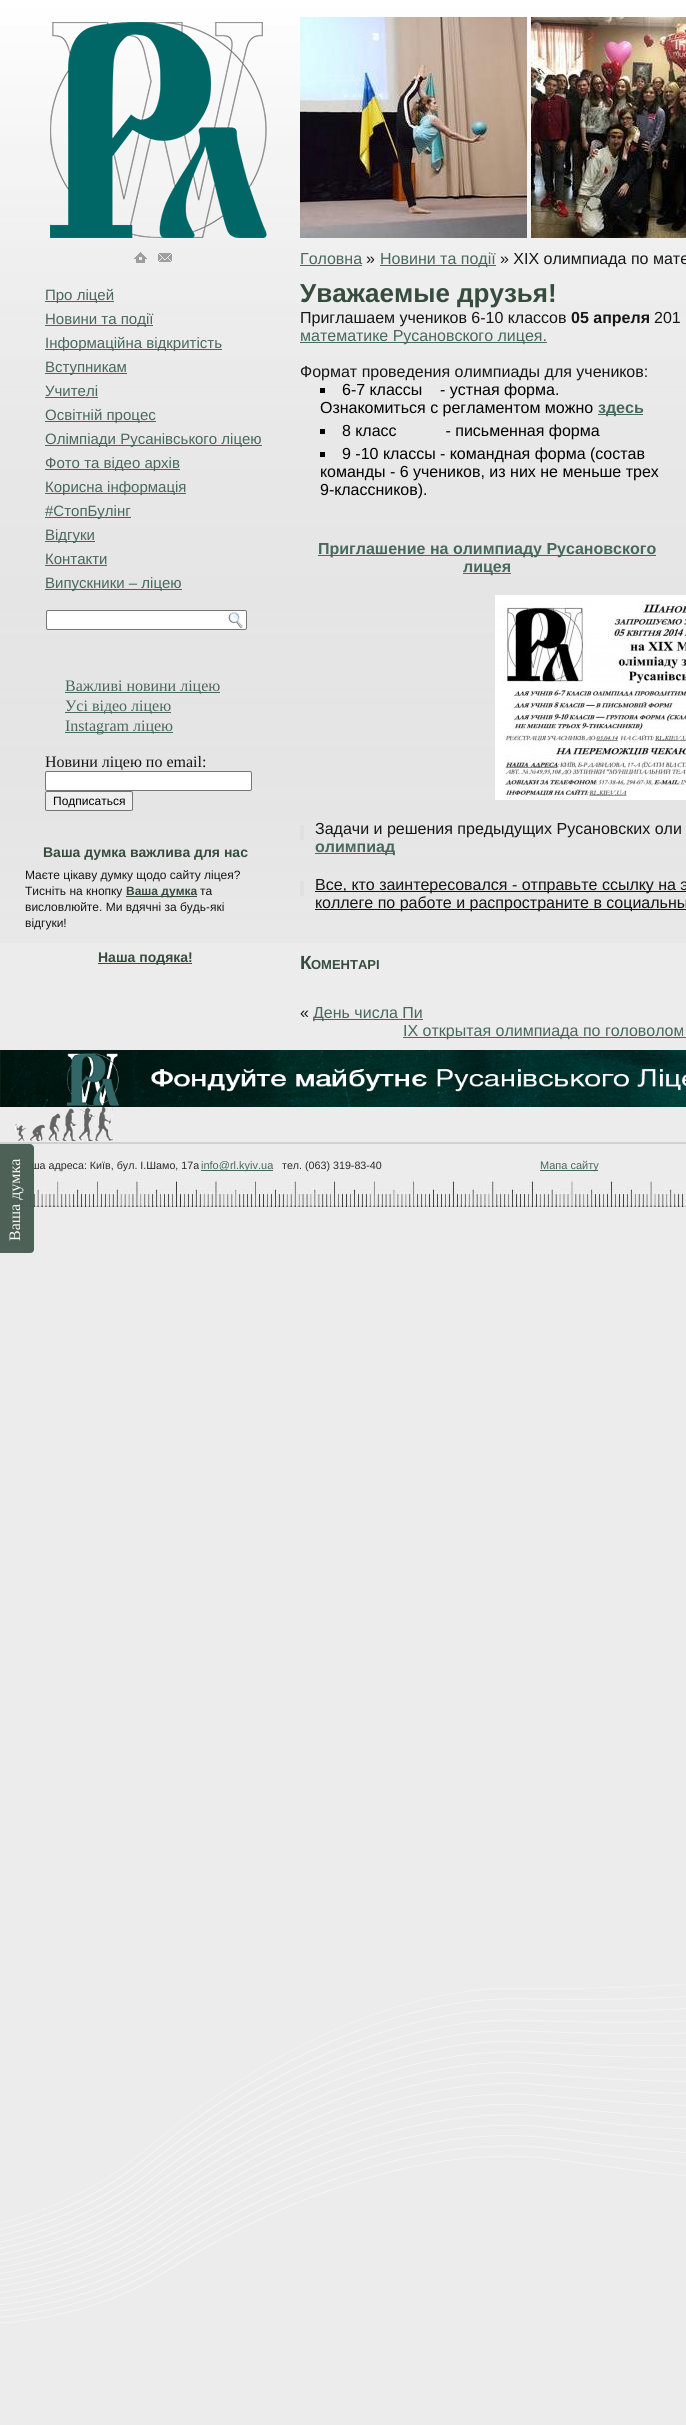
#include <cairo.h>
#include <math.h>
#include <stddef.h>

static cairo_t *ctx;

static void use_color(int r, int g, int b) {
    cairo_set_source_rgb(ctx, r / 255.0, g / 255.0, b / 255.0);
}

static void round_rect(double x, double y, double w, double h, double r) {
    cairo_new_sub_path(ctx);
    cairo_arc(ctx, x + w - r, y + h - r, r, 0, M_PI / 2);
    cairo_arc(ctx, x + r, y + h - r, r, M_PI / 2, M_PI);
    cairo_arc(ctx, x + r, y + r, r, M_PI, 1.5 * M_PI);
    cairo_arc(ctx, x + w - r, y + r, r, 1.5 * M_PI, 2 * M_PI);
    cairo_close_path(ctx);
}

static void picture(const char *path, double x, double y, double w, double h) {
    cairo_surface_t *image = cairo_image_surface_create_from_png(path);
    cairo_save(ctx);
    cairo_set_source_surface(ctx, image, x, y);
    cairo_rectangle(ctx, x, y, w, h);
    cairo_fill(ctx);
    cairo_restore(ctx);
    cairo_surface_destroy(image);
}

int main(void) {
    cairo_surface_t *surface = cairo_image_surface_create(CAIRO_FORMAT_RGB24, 686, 2425);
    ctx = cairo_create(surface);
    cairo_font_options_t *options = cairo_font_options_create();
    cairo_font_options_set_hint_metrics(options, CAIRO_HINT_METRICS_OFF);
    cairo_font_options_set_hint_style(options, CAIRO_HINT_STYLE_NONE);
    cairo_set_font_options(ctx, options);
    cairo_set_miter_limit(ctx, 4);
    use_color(236, 236, 236);
    cairo_paint(ctx);
    picture("img1.png", 0, 0, 686, 943);
    picture("img2.png", 0, 1984, 686, 340);
    picture("img3.png", 50, 22, 217, 216);
    picture("img4.png", 300, 17, 227, 221);
    picture("img5.png", 531, 17, 155, 221);
    picture("img6.png", 134, 252, 13, 11);
    picture("img7.png", 158, 253, 14, 9);
    cairo_select_font_face(ctx, "Liberation Sans", CAIRO_FONT_SLANT_NORMAL, CAIRO_FONT_WEIGHT_NORMAL);
    cairo_set_font_size(ctx, 16);
    use_color(72, 104, 93);
    cairo_move_to(ctx, 300, 264);
    cairo_show_text(ctx, "Головна");
    cairo_rectangle(ctx, 300, 265, 62, 1);
    cairo_fill(ctx);
    use_color(22, 22, 22);
    cairo_move_to(ctx, 366, 264);
    cairo_show_text(ctx, "»");
    use_color(72, 104, 93);
    cairo_rectangle(ctx, 380, 265, 116, 1);
    cairo_fill(ctx);
    cairo_move_to(ctx, 380, 264);
    cairo_show_text(ctx, "Новини та події");
    use_color(22, 22, 22);
    cairo_move_to(ctx, 500, 264);
    cairo_show_text(ctx, "» XIX олимпиада по мате");
    use_color(72, 104, 93);
    cairo_rectangle(ctx, 45, 301, 69, 1);
    cairo_fill(ctx);
    cairo_set_font_size(ctx, 15);
    cairo_move_to(ctx, 45, 300);
    cairo_show_text(ctx, "Про ліцей");
    cairo_rectangle(ctx, 45, 325, 108, 1);
    cairo_fill(ctx);
    cairo_move_to(ctx, 45, 324);
    cairo_show_text(ctx, "Новини та події");
    cairo_rectangle(ctx, 45, 349, 177, 1);
    cairo_fill(ctx);
    cairo_move_to(ctx, 45, 348);
    cairo_show_text(ctx, "Інформаційна відкритість");
    cairo_rectangle(ctx, 45, 373, 82, 1);
    cairo_fill(ctx);
    cairo_move_to(ctx, 45, 372);
    cairo_show_text(ctx, "Вступникам");
    cairo_move_to(ctx, 45, 396);
    cairo_show_text(ctx, "Учителі");
    cairo_rectangle(ctx, 45, 397, 53, 1);
    cairo_fill(ctx);
    cairo_rectangle(ctx, 45, 421, 111, 1);
    cairo_fill(ctx);
    cairo_move_to(ctx, 45, 420);
    cairo_show_text(ctx, "Освітній процес");
    cairo_rectangle(ctx, 45, 445, 217, 1);
    cairo_fill(ctx);
    cairo_move_to(ctx, 45, 444);
    cairo_show_text(ctx, "Олімпіади Русанівського ліцею");
    cairo_rectangle(ctx, 45, 469, 135, 1);
    cairo_fill(ctx);
    cairo_move_to(ctx, 45, 468);
    cairo_show_text(ctx, "Фото та відео архів");
    cairo_rectangle(ctx, 45, 493, 141, 1);
    cairo_fill(ctx);
    cairo_move_to(ctx, 45, 492);
    cairo_show_text(ctx, "Корисна інформація");
    cairo_rectangle(ctx, 45, 517, 86, 1);
    cairo_fill(ctx);
    cairo_move_to(ctx, 45, 516);
    cairo_show_text(ctx, "#СтопБулінг");
    cairo_rectangle(ctx, 45, 541, 50, 1);
    cairo_fill(ctx);
    cairo_move_to(ctx, 45, 540);
    cairo_show_text(ctx, "Відгуки");
    cairo_move_to(ctx, 45, 564);
    cairo_show_text(ctx, "Контакти");
    cairo_rectangle(ctx, 45, 565, 62, 1);
    cairo_fill(ctx);
    cairo_rectangle(ctx, 45, 589, 137, 1);
    cairo_fill(ctx);
    cairo_move_to(ctx, 45, 588);
    cairo_show_text(ctx, "Випускники – ліцею");
    use_color(255, 255, 255);
    round_rect(46.5, 610.5, 200, 19, 1.5);
    cairo_fill_preserve(ctx);
    use_color(118, 118, 118);
    cairo_set_line_width(ctx, 1);
    cairo_stroke(ctx);
    picture("img8.png", 228, 612, 15, 16);
    use_color(72, 104, 93);
    cairo_rectangle(ctx, 65, 692, 155, 1);
    cairo_fill(ctx);
    cairo_select_font_face(ctx, "Liberation Serif", CAIRO_FONT_SLANT_NORMAL, CAIRO_FONT_WEIGHT_NORMAL);
    cairo_set_font_size(ctx, 16);
    cairo_move_to(ctx, 65, 691);
    cairo_show_text(ctx, "Важливі новини ліцею");
    cairo_rectangle(ctx, 65, 712, 106, 1);
    cairo_fill(ctx);
    cairo_move_to(ctx, 65, 711);
    cairo_show_text(ctx, "Усі відео ліцею");
    cairo_rectangle(ctx, 65, 732, 108, 1);
    cairo_fill(ctx);
    cairo_move_to(ctx, 65, 731);
    cairo_show_text(ctx, "Instagram ліцею");
    use_color(22, 22, 22);
    cairo_move_to(ctx, 45, 767);
    cairo_show_text(ctx, "Новини ліцею по email:");
    use_color(255, 255, 255);
    round_rect(45.5, 771.5, 206, 19, 1.5);
    cairo_fill_preserve(ctx);
    use_color(118, 118, 118);
    cairo_stroke(ctx);
    use_color(239, 239, 239);
    round_rect(45.5, 791.5, 87, 19, 1.5);
    cairo_fill_preserve(ctx);
    use_color(118, 118, 118);
    cairo_stroke(ctx);
    cairo_select_font_face(ctx, "Liberation Sans", CAIRO_FONT_SLANT_NORMAL, CAIRO_FONT_WEIGHT_NORMAL);
    cairo_set_font_size(ctx, 12);
    use_color(0, 0, 0);
    cairo_move_to(ctx, 53, 805);
    cairo_show_text(ctx, "Подписаться");
    cairo_select_font_face(ctx, "Liberation Sans", CAIRO_FONT_SLANT_NORMAL, CAIRO_FONT_WEIGHT_BOLD);
    cairo_set_font_size(ctx, 14);
    use_color(54, 77, 61);
    cairo_move_to(ctx, 43, 857);
    cairo_show_text(ctx, "Ваша думка важлива для нас");
    cairo_select_font_face(ctx, "Liberation Sans", CAIRO_FONT_SLANT_NORMAL, CAIRO_FONT_WEIGHT_NORMAL);
    cairo_set_font_size(ctx, 12);
    use_color(22, 22, 22);
    cairo_move_to(ctx, 25, 879);
    cairo_show_text(ctx, "Маєте цікаву думку щодо сайту ліцея?");
    cairo_move_to(ctx, 25, 895);
    cairo_show_text(ctx, "Тисніть на кнопку");
    use_color(54, 77, 61);
    cairo_rectangle(ctx, 126, 896, 71, 1);
    cairo_fill(ctx);
    cairo_select_font_face(ctx, "Liberation Sans", CAIRO_FONT_SLANT_NORMAL, CAIRO_FONT_WEIGHT_BOLD);
    cairo_move_to(ctx, 126, 895);
    cairo_show_text(ctx, "Ваша думка");
    cairo_select_font_face(ctx, "Liberation Sans", CAIRO_FONT_SLANT_NORMAL, CAIRO_FONT_WEIGHT_NORMAL);
    use_color(22, 22, 22);
    cairo_move_to(ctx, 200, 895);
    cairo_show_text(ctx, "та");
    cairo_move_to(ctx, 25, 911);
    cairo_show_text(ctx, "висловлюйте. Ми вдячні за будь-які");
    cairo_move_to(ctx, 25, 927);
    cairo_show_text(ctx, "відгуки!");
    use_color(54, 77, 61);
    cairo_rectangle(ctx, 98, 963, 94, 1);
    cairo_fill(ctx);
    cairo_select_font_face(ctx, "Liberation Sans", CAIRO_FONT_SLANT_NORMAL, CAIRO_FONT_WEIGHT_BOLD);
    cairo_set_font_size(ctx, 14);
    cairo_move_to(ctx, 98, 962);
    cairo_show_text(ctx, "Наша подяка!");
    cairo_set_font_size(ctx, 26);
    cairo_move_to(ctx, 300, 302);
    cairo_show_text(ctx, "Уважаемые друзья!");
    cairo_select_font_face(ctx, "Liberation Sans", CAIRO_FONT_SLANT_NORMAL, CAIRO_FONT_WEIGHT_NORMAL);
    cairo_set_font_size(ctx, 16);
    use_color(22, 22, 22);
    cairo_move_to(ctx, 300, 323);
    cairo_show_text(ctx, "Приглашаем учеников 6-10 классов");
    cairo_select_font_face(ctx, "Liberation Sans", CAIRO_FONT_SLANT_NORMAL, CAIRO_FONT_WEIGHT_BOLD);
    cairo_move_to(ctx, 571, 323);
    cairo_show_text(ctx, "05 апреля");
    cairo_select_font_face(ctx, "Liberation Sans", CAIRO_FONT_SLANT_NORMAL, CAIRO_FONT_WEIGHT_NORMAL);
    cairo_move_to(ctx, 654, 323);
    cairo_show_text(ctx, "201");
    use_color(73, 105, 94);
    cairo_rectangle(ctx, 300, 342, 247, 1);
    cairo_fill(ctx);
    use_color(72, 104, 93);
    cairo_move_to(ctx, 300, 341);
    cairo_show_text(ctx, "математике Русановского лицея.");
    use_color(22, 22, 22);
    cairo_move_to(ctx, 300, 377);
    cairo_show_text(ctx, "Формат проведения олимпиады для учеников:");
    use_color(0, 0, 0);
    cairo_rectangle(ctx, 320, 388, 5, 5);
    cairo_fill(ctx);
    cairo_move_to(ctx, 342, 395);
    cairo_show_text(ctx, "6-7 классы    - устная форма.");
    cairo_move_to(ctx, 320, 413);
    cairo_show_text(ctx, "Ознакомиться с регламентом можно");
    use_color(73, 105, 94);
    cairo_rectangle(ctx, 598, 414, 45, 1);
    cairo_fill(ctx);
    cairo_select_font_face(ctx, "Liberation Sans", CAIRO_FONT_SLANT_NORMAL, CAIRO_FONT_WEIGHT_BOLD);
    use_color(72, 104, 93);
    cairo_move_to(ctx, 598, 413);
    cairo_show_text(ctx, "здесь");
    use_color(0, 0, 0);
    cairo_rectangle(ctx, 320, 429, 5, 5);
    cairo_fill(ctx);
    cairo_select_font_face(ctx, "Liberation Sans", CAIRO_FONT_SLANT_NORMAL, CAIRO_FONT_WEIGHT_NORMAL);
    cairo_move_to(ctx, 342, 436);
    cairo_show_text(ctx, "8 класс           - письменная форма");
    cairo_rectangle(ctx, 320, 452, 5, 5);
    cairo_fill(ctx);
    cairo_move_to(ctx, 342, 459);
    cairo_show_text(ctx, "9 -10 классы - командная форма (состав");
    cairo_move_to(ctx, 320, 477);
    cairo_show_text(ctx, "команды - 6 учеников, из них не меньше трех");
    cairo_move_to(ctx, 320, 495);
    cairo_show_text(ctx, "9-классников).");
    use_color(73, 105, 94);
    cairo_rectangle(ctx, 318, 555, 338, 1);
    cairo_fill(ctx);
    cairo_select_font_face(ctx, "Liberation Sans", CAIRO_FONT_SLANT_NORMAL, CAIRO_FONT_WEIGHT_BOLD);
    use_color(72, 104, 93);
    cairo_move_to(ctx, 318, 554);
    cairo_show_text(ctx, "Приглашение на олимпиаду Русановского");
    use_color(73, 105, 94);
    cairo_rectangle(ctx, 463, 573, 48, 1);
    cairo_fill(ctx);
    use_color(72, 104, 93);
    cairo_move_to(ctx, 463, 572);
    cairo_show_text(ctx, "лицея");
    picture("img9.png", 495, 595, 191, 205);
    use_color(224, 224, 224);
    cairo_rectangle(ctx, 300, 825, 4, 15);
    cairo_fill(ctx);
    cairo_select_font_face(ctx, "Liberation Sans", CAIRO_FONT_SLANT_NORMAL, CAIRO_FONT_WEIGHT_NORMAL);
    use_color(22, 22, 22);
    cairo_move_to(ctx, 315, 834);
    cairo_show_text(ctx, "Задачи и решения предыдущих Русановских оли");
    use_color(73, 105, 94);
    cairo_rectangle(ctx, 315, 853, 80, 1);
    cairo_fill(ctx);
    cairo_select_font_face(ctx, "Liberation Sans", CAIRO_FONT_SLANT_NORMAL, CAIRO_FONT_WEIGHT_BOLD);
    use_color(72, 104, 93);
    cairo_move_to(ctx, 315, 852);
    cairo_show_text(ctx, "олимпиад");
    use_color(224, 224, 224);
    cairo_rectangle(ctx, 300, 881, 4, 15);
    cairo_fill(ctx);
    use_color(22, 22, 22);
    cairo_rectangle(ctx, 315, 891, 371, 1);
    cairo_fill(ctx);
    cairo_select_font_face(ctx, "Liberation Sans", CAIRO_FONT_SLANT_NORMAL, CAIRO_FONT_WEIGHT_NORMAL);
    cairo_move_to(ctx, 315, 890);
    cairo_show_text(ctx, "Все, кто заинтересовался - отправьте ссылку на э");
    cairo_rectangle(ctx, 315, 909, 371, 1);
    cairo_fill(ctx);
    cairo_move_to(ctx, 315, 908);
    cairo_show_text(ctx, "коллеге по работе и распространите в социальны");
    cairo_select_font_face(ctx, "Liberation Sans", CAIRO_FONT_SLANT_NORMAL, CAIRO_FONT_WEIGHT_BOLD);
    cairo_set_font_size(ctx, 19);
    use_color(54, 77, 61);
    cairo_move_to(ctx, 300, 969);
    cairo_show_text(ctx, "К");
    cairo_set_font_size(ctx, 13);
    cairo_move_to(ctx, 311, 969);
    cairo_show_text(ctx, "ОМЕНТАРІ");
    cairo_select_font_face(ctx, "Liberation Sans", CAIRO_FONT_SLANT_NORMAL, CAIRO_FONT_WEIGHT_NORMAL);
    cairo_set_font_size(ctx, 16);
    use_color(22, 22, 22);
    cairo_move_to(ctx, 300, 1018);
    cairo_show_text(ctx, "«");
    use_color(73, 105, 94);
    cairo_rectangle(ctx, 313, 1019, 110, 1);
    cairo_fill(ctx);
    use_color(72, 104, 93);
    cairo_move_to(ctx, 313, 1018);
    cairo_show_text(ctx, "День числа Пи");
    use_color(73, 105, 94);
    cairo_rectangle(ctx, 403, 1037, 283, 1);
    cairo_fill(ctx);
    use_color(72, 104, 93);
    cairo_move_to(ctx, 403, 1036);
    cairo_show_text(ctx, "IX открытая олимпиада по головолом");
    picture("img10.png", 0, 1050, 686, 57);
    picture("img11.png", 15, 1107, 98, 35);
    use_color(209, 209, 209);
    cairo_rectangle(ctx, 0, 1142, 686, 2);
    cairo_fill(ctx);
    cairo_set_font_size(ctx, 10.7);
    use_color(42, 42, 42);
    cairo_move_to(ctx, 31, 1169);
    cairo_show_text(ctx, "ша адреса: Київ, бул. I.Шамо, 17а");
    use_color(72, 104, 93);
    cairo_rectangle(ctx, 201, 1170, 72, 1);
    cairo_fill(ctx);
    cairo_set_font_size(ctx, 11);
    cairo_move_to(ctx, 201, 1169);
    cairo_show_text(ctx, "info@rl.kyiv.ua");
    cairo_set_font_size(ctx, 10.7);
    use_color(42, 42, 42);
    cairo_move_to(ctx, 282, 1169);
    cairo_show_text(ctx, "тел. (063) 319-83-40");
    use_color(72, 104, 93);
    cairo_rectangle(ctx, 540, 1170, 58, 1);
    cairo_fill(ctx);
    cairo_set_font_size(ctx, 11);
    cairo_move_to(ctx, 540, 1169);
    cairo_show_text(ctx, "Мапа сайту");
    picture("img12.png", 0, 1180, 686, 27);
    cairo_set_source_rgba(ctx, 0.278, 0.357, 0.31, 0.95);
    cairo_new_path(ctx);
    cairo_move_to(ctx, -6, 1249);
    cairo_line_to(ctx, -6, 1148);
    cairo_curve_to(ctx, -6, 1146, -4, 1144, -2, 1144);
    cairo_line_to(ctx, 30, 1144);
    cairo_curve_to(ctx, 32, 1144, 34, 1146, 34, 1148);
    cairo_line_to(ctx, 34, 1249);
    cairo_curve_to(ctx, 34, 1252, 32, 1253, 30, 1253);
    cairo_line_to(ctx, -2, 1253);
    cairo_curve_to(ctx, -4, 1253, -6, 1252, -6, 1249);
    cairo_close_path(ctx);
    cairo_fill(ctx);
    cairo_select_font_face(ctx, "Liberation Serif", CAIRO_FONT_SLANT_NORMAL, CAIRO_FONT_WEIGHT_NORMAL);
    cairo_set_font_size(ctx, 16);
    use_color(246, 247, 247);
    cairo_save(ctx);
    cairo_translate(ctx, 20, 1241);
    cairo_rotate(ctx, -90 * M_PI / 180);
    cairo_move_to(ctx, 0, 0);
    cairo_show_text(ctx, "Ваша думка");
    cairo_restore(ctx);
    cairo_surface_write_to_png(surface, "result.png");
    cairo_font_options_destroy(options);
    cairo_destroy(ctx);
    cairo_surface_destroy(surface);
    return 0;
}
